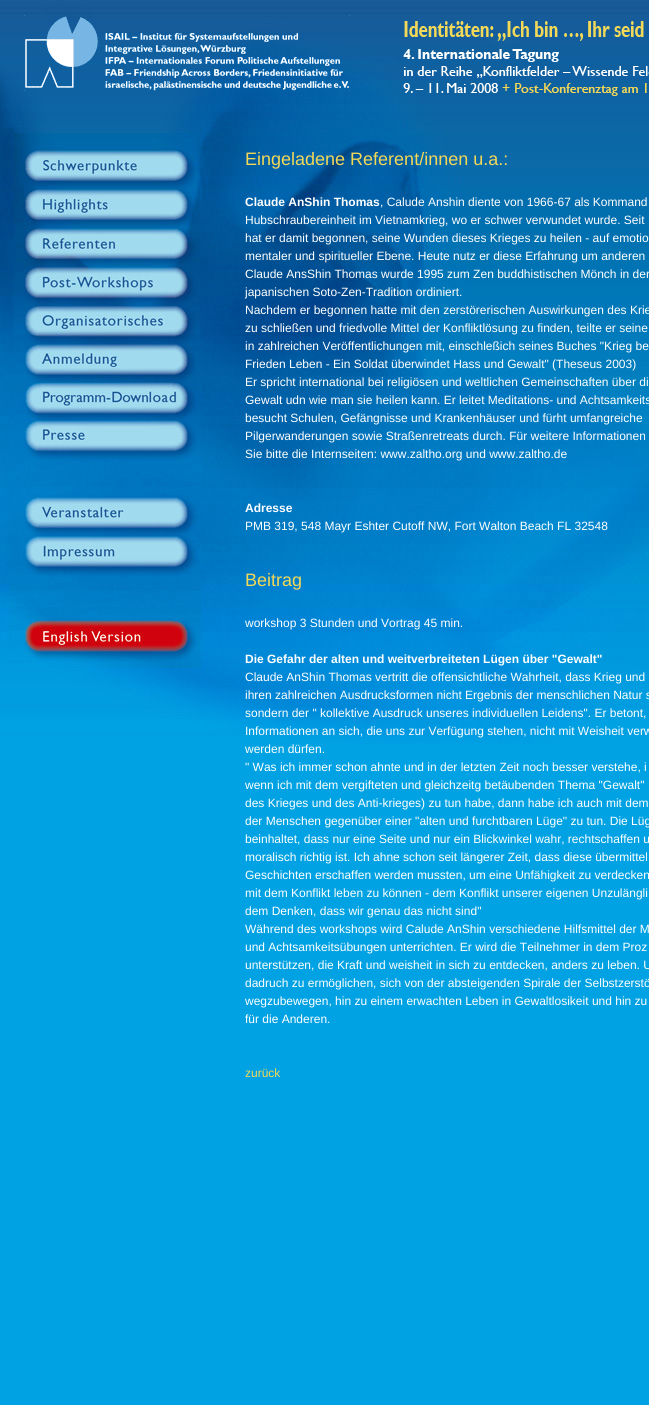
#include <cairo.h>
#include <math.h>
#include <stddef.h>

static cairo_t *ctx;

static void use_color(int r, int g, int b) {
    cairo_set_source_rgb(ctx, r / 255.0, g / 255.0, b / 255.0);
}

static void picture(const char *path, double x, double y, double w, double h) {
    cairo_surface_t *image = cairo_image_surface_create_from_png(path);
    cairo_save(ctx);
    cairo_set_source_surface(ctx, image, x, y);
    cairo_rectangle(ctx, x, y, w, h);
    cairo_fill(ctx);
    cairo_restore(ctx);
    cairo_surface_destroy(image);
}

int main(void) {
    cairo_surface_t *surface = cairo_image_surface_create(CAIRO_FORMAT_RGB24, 649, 1405);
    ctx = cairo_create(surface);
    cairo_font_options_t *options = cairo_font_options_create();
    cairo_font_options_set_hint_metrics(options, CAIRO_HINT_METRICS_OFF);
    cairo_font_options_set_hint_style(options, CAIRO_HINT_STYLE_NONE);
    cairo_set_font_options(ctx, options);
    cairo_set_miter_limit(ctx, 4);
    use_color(0, 162, 227);
    cairo_paint(ctx);
    picture("img1.png", 0, 0, 649, 744);
    picture("img2.png", 24, 15, 326, 76);
    picture("img3.png", 403, 21, 246, 75);
    cairo_select_font_face(ctx, "Liberation Sans", CAIRO_FONT_SLANT_NORMAL, CAIRO_FONT_WEIGHT_NORMAL);
    cairo_set_font_size(ctx, 18);
    use_color(244, 216, 87);
    cairo_move_to(ctx, 245, 165);
    cairo_show_text(ctx, "Eingeladene Referent/innen u.a.:");
    cairo_select_font_face(ctx, "Liberation Sans", CAIRO_FONT_SLANT_NORMAL, CAIRO_FONT_WEIGHT_BOLD);
    cairo_set_font_size(ctx, 12);
    use_color(255, 255, 255);
    cairo_move_to(ctx, 245, 206);
    cairo_show_text(ctx, "Claude AnShin Thomas");
    cairo_select_font_face(ctx, "Liberation Sans", CAIRO_FONT_SLANT_NORMAL, CAIRO_FONT_WEIGHT_NORMAL);
    cairo_move_to(ctx, 380, 206);
    cairo_show_text(ctx, ", Calude Anshin diente von 1966-67 als Kommand");
    cairo_move_to(ctx, 245, 224);
    cairo_show_text(ctx, "Hubschraubereinheit im Vietnamkrieg, wo er schwer verwundet wurde. Seit");
    cairo_move_to(ctx, 245, 242);
    cairo_show_text(ctx, "hat er damit begonnen, seine Wunden dieses Krieges zu heilen - auf emotio");
    cairo_move_to(ctx, 245, 260);
    cairo_show_text(ctx, "mentaler und spiritueller Ebene. Heute nutz er diese Erfahrung um anderen");
    cairo_move_to(ctx, 245, 278);
    cairo_show_text(ctx, "Claude AnsShin Thomas wurde 1995 zum Zen buddhistischen Mönch in der");
    cairo_move_to(ctx, 245, 296);
    cairo_show_text(ctx, "japanischen Soto-Zen-Tradition ordiniert.");
    cairo_move_to(ctx, 245, 314);
    cairo_show_text(ctx, "Nachdem er begonnen hatte mit den zerstörerischen Auswirkungen des Krie");
    cairo_move_to(ctx, 245, 332);
    cairo_show_text(ctx, "zu schließen und friedvolle Mittel der Konfliktlösung zu finden, teilte er seine");
    cairo_move_to(ctx, 245, 350);
    cairo_show_text(ctx, "in zahlreichen Veröffentlichungen mit, einschleßich seines Buches \"Krieg be");
    cairo_move_to(ctx, 245, 368);
    cairo_show_text(ctx, "Frieden Leben - Ein Soldat überwindet Hass und Gewalt\" (Theseus 2003)");
    cairo_move_to(ctx, 245, 386);
    cairo_show_text(ctx, "Er spricht international bei religiösen und weltlichen Gemeinschaften über di");
    cairo_move_to(ctx, 245, 404);
    cairo_show_text(ctx, "Gewalt udn wie man sie heilen kann. Er leitet Meditations- und Achtsamkeits");
    cairo_move_to(ctx, 245, 422);
    cairo_show_text(ctx, "besucht Schulen, Gefängnisse und Krankenhäuser und fürht umfangreiche");
    cairo_move_to(ctx, 245, 440);
    cairo_show_text(ctx, "Pilgerwanderungen sowie Straßenretreats durch. Für weitere Informationen");
    cairo_move_to(ctx, 245, 458);
    cairo_show_text(ctx, "Sie bitte die Internseiten: www.zaltho.org und www.zaltho.de");
    cairo_select_font_face(ctx, "Liberation Sans", CAIRO_FONT_SLANT_NORMAL, CAIRO_FONT_WEIGHT_BOLD);
    cairo_move_to(ctx, 245, 512);
    cairo_show_text(ctx, "Adresse");
    cairo_select_font_face(ctx, "Liberation Sans", CAIRO_FONT_SLANT_NORMAL, CAIRO_FONT_WEIGHT_NORMAL);
    cairo_move_to(ctx, 245, 530);
    cairo_show_text(ctx, "PMB 319, 548 Mayr Eshter Cutoff NW, Fort Walton Beach FL 32548");
    cairo_set_font_size(ctx, 18);
    use_color(244, 216, 87);
    cairo_move_to(ctx, 245, 586);
    cairo_show_text(ctx, "Beitrag");
    cairo_set_font_size(ctx, 12);
    use_color(255, 255, 255);
    cairo_move_to(ctx, 245, 627);
    cairo_show_text(ctx, "workshop 3 Stunden und Vortrag 45 min.");
    cairo_select_font_face(ctx, "Liberation Sans", CAIRO_FONT_SLANT_NORMAL, CAIRO_FONT_WEIGHT_BOLD);
    cairo_move_to(ctx, 245, 663);
    cairo_show_text(ctx, "Die Gefahr der alten und weitverbreiteten Lügen über \"Gewalt\"");
    cairo_select_font_face(ctx, "Liberation Sans", CAIRO_FONT_SLANT_NORMAL, CAIRO_FONT_WEIGHT_NORMAL);
    cairo_move_to(ctx, 245, 681);
    cairo_show_text(ctx, "Claude AnShin Thomas vertritt die offensichtliche Wahrheit, dass Krieg und");
    cairo_move_to(ctx, 245, 699);
    cairo_show_text(ctx, "ihren zahlreichen Ausdrucksformen nicht Ergebnis der menschlichen Natur s");
    cairo_move_to(ctx, 245, 717);
    cairo_show_text(ctx, "sondern der \" kollektive Ausdruck unseres individuellen Leidens\". Er betont,");
    cairo_move_to(ctx, 245, 735);
    cairo_show_text(ctx, "Informationen an sich, die uns zur Verfügung stehen, nicht mit Weisheit verw");
    cairo_move_to(ctx, 245, 753);
    cairo_show_text(ctx, "werden dürfen.");
    cairo_move_to(ctx, 245, 771);
    cairo_show_text(ctx, "\" Was ich immer schon ahnte und in der letzten Zeit noch besser verstehe, i");
    cairo_move_to(ctx, 245, 789);
    cairo_show_text(ctx, "wenn ich mit dem vergifteten und gleichzeitg betäubenden Thema \"Gewalt\"");
    cairo_move_to(ctx, 245, 807);
    cairo_show_text(ctx, "des Krieges und des Anti-krieges) zu tun habe, dann habe ich auch mit dem");
    cairo_move_to(ctx, 245, 825);
    cairo_show_text(ctx, "der Menschen gegenüber einer \"alten und furchtbaren Lüge\" zu tun. Die Lüg");
    cairo_move_to(ctx, 245, 843);
    cairo_show_text(ctx, "beinhaltet, dass nur eine Seite und nur ein Blickwinkel wahr, rechtschaffen u");
    cairo_move_to(ctx, 245, 861);
    cairo_show_text(ctx, "moralisch richtig ist. Ich ahne schon seit längerer Zeit, dass diese übermittel");
    cairo_move_to(ctx, 245, 879);
    cairo_show_text(ctx, "Geschichten erschaffen werden mussten, um eine Unfähigkeit zu verdecken");
    cairo_move_to(ctx, 245, 897);
    cairo_show_text(ctx, "mit dem Konflikt leben zu können - dem Konflikt unserer eigenen Unzulängli");
    cairo_move_to(ctx, 245, 915);
    cairo_show_text(ctx, "dem Denken, dass wir genau das nicht sind\"");
    cairo_move_to(ctx, 245, 933);
    cairo_show_text(ctx, "Während des workshops wird Calude AnShin verschiedene Hilfsmittel der M");
    cairo_move_to(ctx, 245, 951);
    cairo_show_text(ctx, "und Achtsamkeitsübungen unterrichten. Er wird die Teilnehmer in dem Proz");
    cairo_move_to(ctx, 245, 969);
    cairo_show_text(ctx, "unterstützen, die Kraft und weisheit in sich zu entdecken, anders zu leben. U");
    cairo_move_to(ctx, 245, 987);
    cairo_show_text(ctx, "dadruch zu ermöglichen, sich von der absteigenden Spirale der Selbstzerstö");
    cairo_move_to(ctx, 245, 1005);
    cairo_show_text(ctx, "wegzubewegen, hin zu einem erwachten Leben in Gewaltlosikeit und hin zu");
    cairo_move_to(ctx, 245, 1023);
    cairo_show_text(ctx, "für die Anderen.");
    use_color(244, 216, 87);
    cairo_move_to(ctx, 245, 1077);
    cairo_show_text(ctx, "zurück");
    cairo_surface_write_to_png(surface, "result.png");
    cairo_font_options_destroy(options);
    cairo_destroy(ctx);
    cairo_surface_destroy(surface);
    return 0;
}
